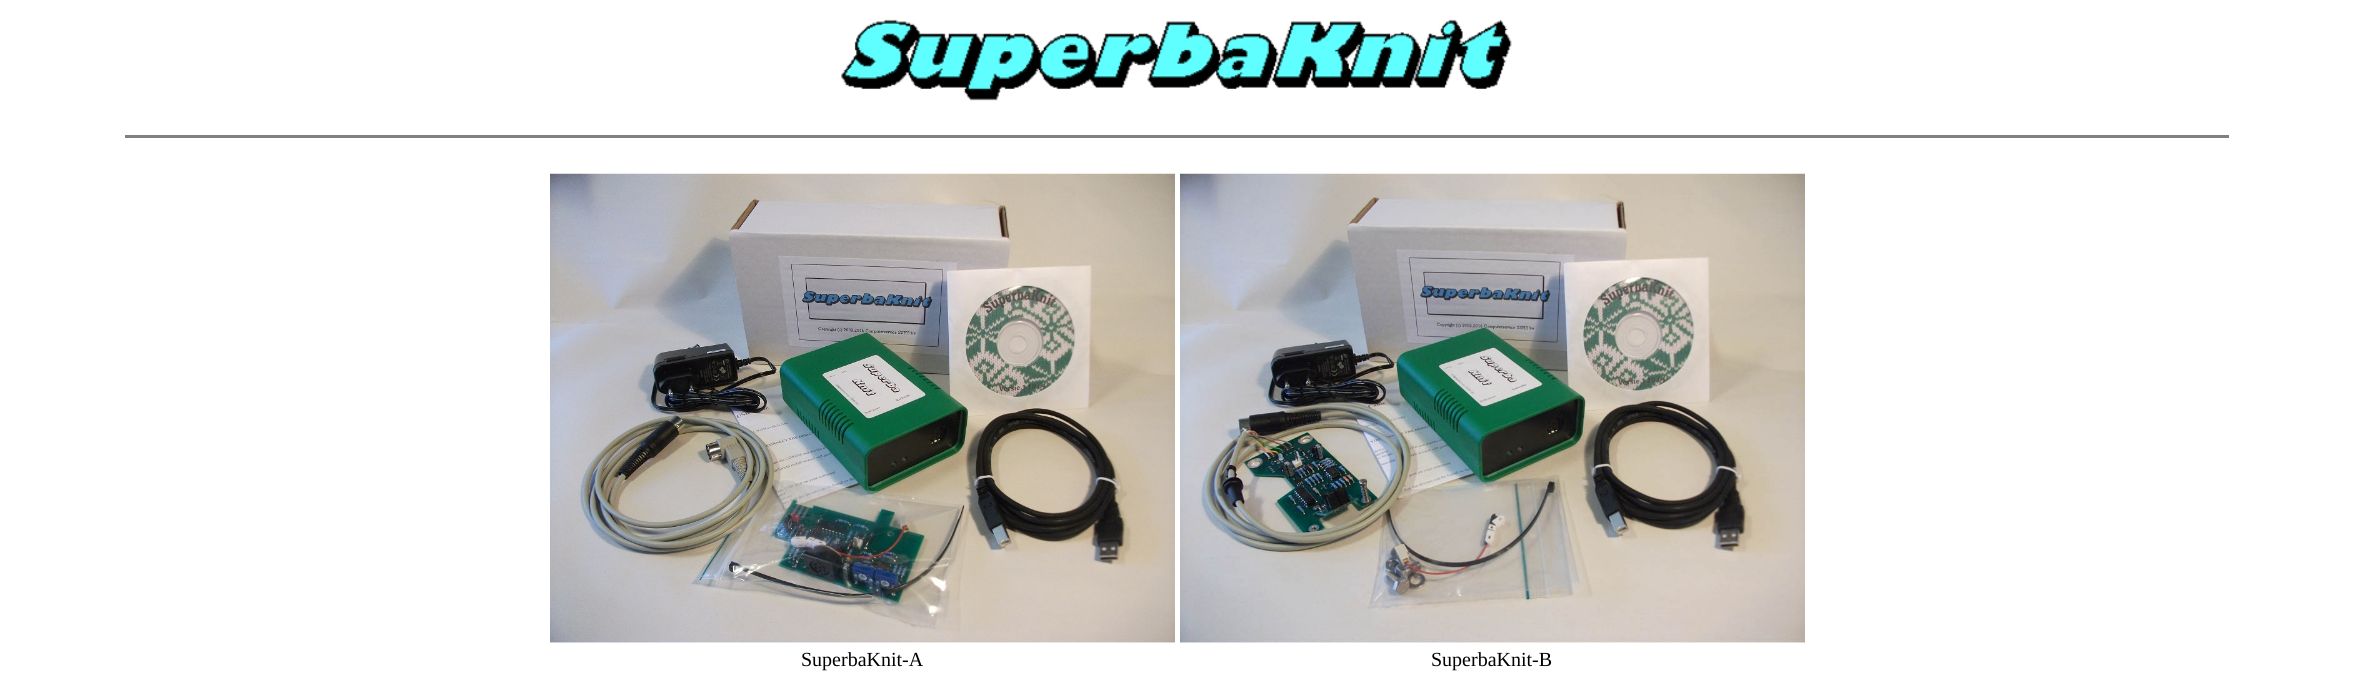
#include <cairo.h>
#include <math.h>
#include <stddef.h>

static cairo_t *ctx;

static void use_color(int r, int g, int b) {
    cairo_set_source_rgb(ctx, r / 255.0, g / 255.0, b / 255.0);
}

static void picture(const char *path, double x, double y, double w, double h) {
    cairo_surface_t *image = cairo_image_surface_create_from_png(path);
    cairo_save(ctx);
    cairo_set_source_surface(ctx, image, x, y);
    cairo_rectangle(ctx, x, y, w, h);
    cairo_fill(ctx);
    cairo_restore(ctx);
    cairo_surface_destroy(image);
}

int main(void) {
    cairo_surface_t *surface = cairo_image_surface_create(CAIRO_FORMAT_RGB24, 2353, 696);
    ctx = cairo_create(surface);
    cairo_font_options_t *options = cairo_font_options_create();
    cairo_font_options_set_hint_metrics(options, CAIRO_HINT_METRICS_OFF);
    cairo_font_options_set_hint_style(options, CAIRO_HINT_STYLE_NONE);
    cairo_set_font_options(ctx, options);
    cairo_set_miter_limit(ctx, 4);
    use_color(255, 255, 255);
    cairo_paint(ctx);
    picture("img1.png", 841, 19, 671, 82);
    use_color(128, 128, 128);
    cairo_rectangle(ctx, 125, 135, 2104, 3);
    cairo_fill(ctx);
    picture("img2.png", 550, 173, 625, 470);
    picture("img3.png", 1180, 173, 625, 470);
    cairo_select_font_face(ctx, "Liberation Serif", CAIRO_FONT_SLANT_NORMAL, CAIRO_FONT_WEIGHT_NORMAL);
    cairo_set_font_size(ctx, 20);
    use_color(0, 0, 0);
    cairo_move_to(ctx, 801, 666);
    cairo_show_text(ctx, "SuperbaKnit-A");
    cairo_move_to(ctx, 1431, 666);
    cairo_show_text(ctx, "SuperbaKnit-B");
    cairo_surface_write_to_png(surface, "result.png");
    cairo_font_options_destroy(options);
    cairo_destroy(ctx);
    cairo_surface_destroy(surface);
    return 0;
}
